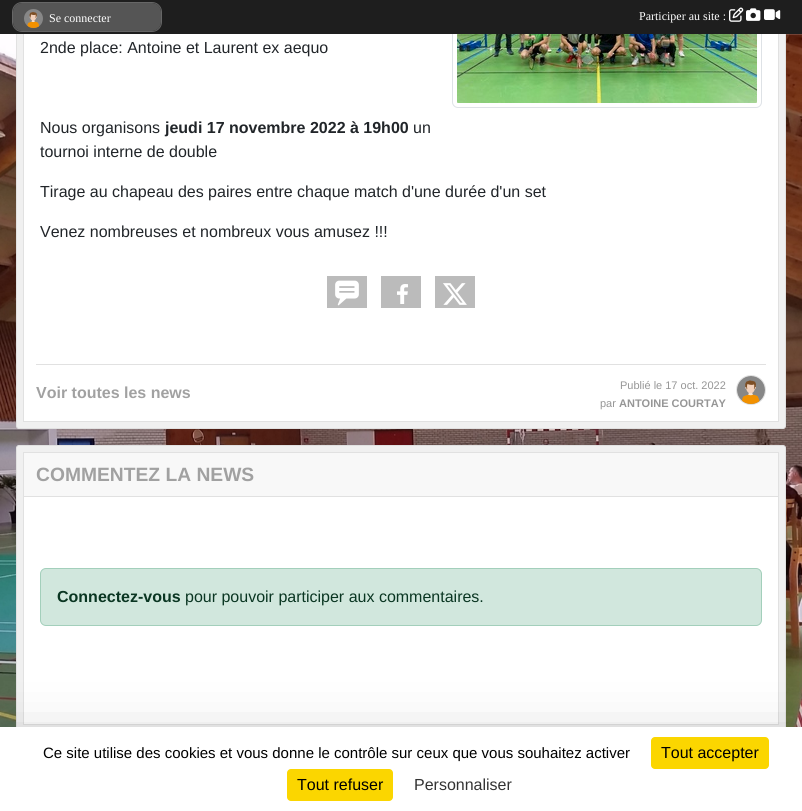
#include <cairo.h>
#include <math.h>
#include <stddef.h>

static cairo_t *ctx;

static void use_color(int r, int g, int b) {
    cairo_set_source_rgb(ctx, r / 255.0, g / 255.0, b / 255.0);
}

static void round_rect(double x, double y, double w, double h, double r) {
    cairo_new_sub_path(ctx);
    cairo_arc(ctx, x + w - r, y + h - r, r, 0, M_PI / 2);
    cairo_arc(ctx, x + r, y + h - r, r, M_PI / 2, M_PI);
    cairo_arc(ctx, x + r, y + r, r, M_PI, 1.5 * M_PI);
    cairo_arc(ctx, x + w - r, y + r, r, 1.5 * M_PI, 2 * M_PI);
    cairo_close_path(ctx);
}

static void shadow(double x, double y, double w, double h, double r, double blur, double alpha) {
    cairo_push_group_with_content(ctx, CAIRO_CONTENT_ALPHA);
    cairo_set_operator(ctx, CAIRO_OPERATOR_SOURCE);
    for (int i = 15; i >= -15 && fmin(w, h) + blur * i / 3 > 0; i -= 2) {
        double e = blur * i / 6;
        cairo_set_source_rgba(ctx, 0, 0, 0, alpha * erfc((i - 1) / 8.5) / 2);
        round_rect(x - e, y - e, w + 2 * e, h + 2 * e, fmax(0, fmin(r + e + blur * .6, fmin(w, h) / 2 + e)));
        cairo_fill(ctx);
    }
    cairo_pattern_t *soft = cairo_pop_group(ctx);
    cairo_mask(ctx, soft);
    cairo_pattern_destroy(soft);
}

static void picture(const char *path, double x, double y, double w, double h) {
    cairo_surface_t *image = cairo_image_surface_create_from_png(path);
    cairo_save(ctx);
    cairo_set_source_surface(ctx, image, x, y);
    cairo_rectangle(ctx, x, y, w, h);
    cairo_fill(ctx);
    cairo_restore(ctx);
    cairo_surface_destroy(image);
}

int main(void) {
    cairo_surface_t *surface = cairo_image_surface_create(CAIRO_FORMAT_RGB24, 802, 811);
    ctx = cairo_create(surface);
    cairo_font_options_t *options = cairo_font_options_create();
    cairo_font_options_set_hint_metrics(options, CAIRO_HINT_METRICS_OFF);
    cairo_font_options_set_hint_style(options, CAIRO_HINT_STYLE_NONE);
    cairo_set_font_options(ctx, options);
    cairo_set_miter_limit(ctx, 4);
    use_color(255, 255, 255);
    cairo_paint(ctx);
    picture("img1.png", 0, 34, 802, 693);
    use_color(240, 240, 240);
    round_rect(16.5, -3.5, 769, 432, 2.5);
    cairo_fill_preserve(ctx);
    use_color(225, 225, 225);
    cairo_set_line_width(ctx, 1);
    cairo_stroke(ctx);
    use_color(255, 255, 255);
    cairo_rectangle(ctx, 24, 34, 754, 387);
    cairo_fill(ctx);
    cairo_rectangle(ctx, 23.5, -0.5, 755, 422);
    use_color(225, 225, 225);
    cairo_stroke(ctx);
    round_rect(452.5, -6.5, 309, 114, 5.5);
    use_color(222, 226, 230);
    cairo_stroke(ctx);
    use_color(30, 30, 30);
    cairo_rectangle(ctx, 0, 0, 802, 34);
    cairo_fill(ctx);
    round_rect(12.5, 2.5, 149, 29, 9.5);
    use_color(102, 102, 102);
    cairo_stroke(ctx);
    use_color(85, 85, 85);
    round_rect(13, 3, 148, 28, 9);
    cairo_fill(ctx);
    picture("img2.png", 24, 9, 19, 19);
    cairo_select_font_face(ctx, "Liberation Serif", CAIRO_FONT_SLANT_NORMAL, CAIRO_FONT_WEIGHT_NORMAL);
    cairo_set_font_size(ctx, 12);
    use_color(255, 255, 255);
    cairo_move_to(ctx, 49, 22);
    cairo_show_text(ctx, "Se connecter");
    cairo_move_to(ctx, 639, 20);
    cairo_show_text(ctx, "Participer au site :");
    picture("img3.png", 729, 7, 15, 15);
    picture("img4.png", 746, 8, 15, 13);
    picture("img5.png", 764, 9, 17, 11);
    cairo_select_font_face(ctx, "Liberation Sans", CAIRO_FONT_SLANT_NORMAL, CAIRO_FONT_WEIGHT_NORMAL);
    cairo_set_font_size(ctx, 16);
    use_color(33, 37, 41);
    cairo_move_to(ctx, 40, 53);
    cairo_show_text(ctx, "2nde place: Antoine et Laurent ex aequo");
    picture("img6.png", 457, 34, 300, 69);
    cairo_move_to(ctx, 40, 133);
    cairo_show_text(ctx, "Nous organisons");
    cairo_select_font_face(ctx, "Liberation Sans", CAIRO_FONT_SLANT_NORMAL, CAIRO_FONT_WEIGHT_BOLD);
    cairo_move_to(ctx, 165, 133);
    cairo_show_text(ctx, "jeudi 17 novembre 2022 à 19h00");
    cairo_select_font_face(ctx, "Liberation Sans", CAIRO_FONT_SLANT_NORMAL, CAIRO_FONT_WEIGHT_NORMAL);
    cairo_move_to(ctx, 413, 133);
    cairo_show_text(ctx, "un");
    cairo_move_to(ctx, 40, 157);
    cairo_show_text(ctx, "tournoi interne de double");
    cairo_move_to(ctx, 40, 197);
    cairo_show_text(ctx, "Tirage au chapeau des paires entre chaque match d'une durée d'un set");
    cairo_move_to(ctx, 40, 237);
    cairo_show_text(ctx, "Venez nombreuses et nombreux vous amusez !!!");
    use_color(187, 187, 187);
    cairo_rectangle(ctx, 327, 276, 40, 32);
    cairo_fill(ctx);
    picture("img7.png", 335, 280, 24, 26);
    cairo_rectangle(ctx, 381, 276, 40, 32);
    cairo_fill(ctx);
    picture("img8.png", 397, 284, 11, 20);
    cairo_rectangle(ctx, 435, 276, 40, 32);
    cairo_fill(ctx);
    picture("img9.png", 443, 283, 24, 22);
    use_color(225, 225, 225);
    cairo_rectangle(ctx, 36, 364, 730, 1);
    cairo_fill(ctx);
    cairo_select_font_face(ctx, "Liberation Sans", CAIRO_FONT_SLANT_NORMAL, CAIRO_FONT_WEIGHT_BOLD);
    use_color(161, 161, 161);
    cairo_move_to(ctx, 36, 398);
    cairo_show_text(ctx, "Voir toutes les news");
    cairo_new_path(ctx);
    cairo_arc(ctx, 751, 390, 14.5, 0, 2 * M_PI);
    use_color(225, 225, 225);
    cairo_stroke(ctx);
    cairo_select_font_face(ctx, "Liberation Sans", CAIRO_FONT_SLANT_NORMAL, CAIRO_FONT_WEIGHT_NORMAL);
    cairo_set_font_size(ctx, 11);
    use_color(150, 150, 150);
    cairo_move_to(ctx, 620, 389);
    cairo_show_text(ctx, "Publié le 17 oct. 2022");
    cairo_move_to(ctx, 600, 407);
    cairo_show_text(ctx, "par");
    cairo_select_font_face(ctx, "Liberation Sans", CAIRO_FONT_SLANT_NORMAL, CAIRO_FONT_WEIGHT_BOLD);
    cairo_move_to(ctx, 619, 407);
    cairo_show_text(ctx, "ANTOINE COURTAY");
    picture("img10.png", 737, 376, 28, 28);
    use_color(240, 240, 240);
    round_rect(16.5, 445.5, 769, 286, 2.5);
    cairo_fill_preserve(ctx);
    use_color(225, 225, 225);
    cairo_stroke(ctx);
    use_color(255, 255, 255);
    cairo_rectangle(ctx, 24, 497, 754, 227);
    cairo_fill(ctx);
    cairo_rectangle(ctx, 23.5, 452.5, 755, 272);
    use_color(225, 225, 225);
    cairo_stroke(ctx);
    use_color(248, 248, 248);
    cairo_rectangle(ctx, 24, 453, 754, 43);
    cairo_fill(ctx);
    use_color(225, 225, 225);
    cairo_rectangle(ctx, 24, 496, 754, 1);
    cairo_fill(ctx);
    cairo_set_font_size(ctx, 19.25);
    use_color(161, 161, 161);
    cairo_move_to(ctx, 36, 481);
    cairo_show_text(ctx, "COMMENTEZ LA NEWS");
    use_color(209, 231, 221);
    round_rect(40.5, 568.5, 721, 57, 5.5);
    cairo_fill_preserve(ctx);
    use_color(163, 207, 187);
    cairo_stroke(ctx);
    cairo_set_font_size(ctx, 16);
    use_color(10, 54, 34);
    cairo_move_to(ctx, 57, 602);
    cairo_show_text(ctx, "Connectez-vous");
    cairo_select_font_face(ctx, "Liberation Sans", CAIRO_FONT_SLANT_NORMAL, CAIRO_FONT_WEIGHT_NORMAL);
    cairo_move_to(ctx, 185, 602);
    cairo_show_text(ctx, "pour pouvoir participer aux commentaires.");
    use_color(0, 0, 0);
    shadow(0, 747, 802, 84, 0, 30, 0.25);
    use_color(255, 255, 255);
    cairo_rectangle(ctx, 0, 727, 802, 84);
    cairo_fill(ctx);
    cairo_set_font_size(ctx, 15);
    use_color(0, 0, 0);
    cairo_move_to(ctx, 43, 758);
    cairo_show_text(ctx, "Ce site utilise des cookies et vous donne le contrôle sur ceux que vous souhaitez activer");
    use_color(251, 214, 0);
    round_rect(651, 737, 118, 32, 4);
    cairo_fill(ctx);
    cairo_set_font_size(ctx, 16);
    use_color(0, 0, 0);
    cairo_move_to(ctx, 661, 758);
    cairo_show_text(ctx, "Tout accepter");
    use_color(251, 214, 0);
    round_rect(287, 769, 106, 32, 4);
    cairo_fill(ctx);
    use_color(0, 0, 0);
    cairo_move_to(ctx, 297, 790);
    cairo_show_text(ctx, "Tout refuser");
    use_color(51, 51, 51);
    cairo_move_to(ctx, 414, 790);
    cairo_show_text(ctx, "Personnaliser");
    cairo_surface_write_to_png(surface, "result.png");
    cairo_font_options_destroy(options);
    cairo_destroy(ctx);
    cairo_surface_destroy(surface);
    return 0;
}
